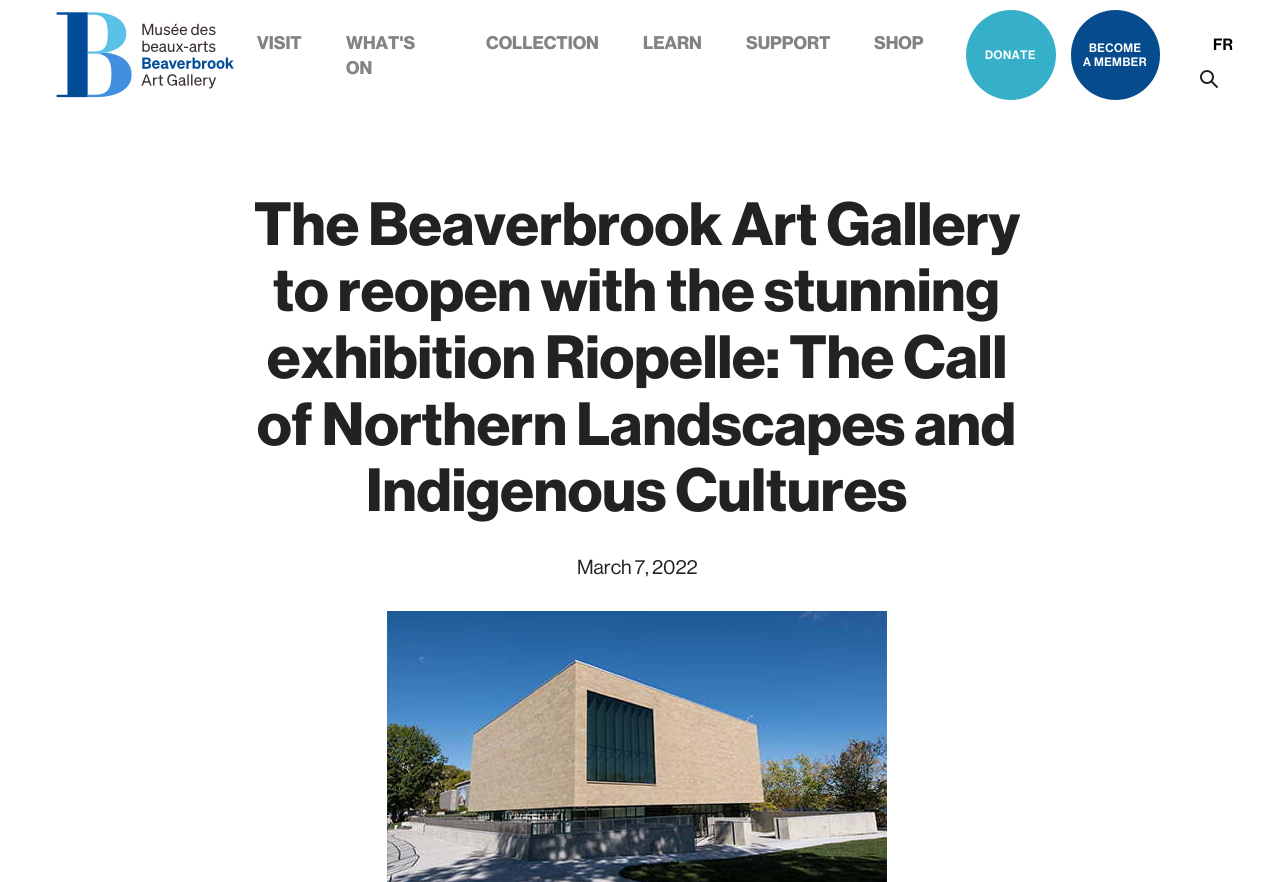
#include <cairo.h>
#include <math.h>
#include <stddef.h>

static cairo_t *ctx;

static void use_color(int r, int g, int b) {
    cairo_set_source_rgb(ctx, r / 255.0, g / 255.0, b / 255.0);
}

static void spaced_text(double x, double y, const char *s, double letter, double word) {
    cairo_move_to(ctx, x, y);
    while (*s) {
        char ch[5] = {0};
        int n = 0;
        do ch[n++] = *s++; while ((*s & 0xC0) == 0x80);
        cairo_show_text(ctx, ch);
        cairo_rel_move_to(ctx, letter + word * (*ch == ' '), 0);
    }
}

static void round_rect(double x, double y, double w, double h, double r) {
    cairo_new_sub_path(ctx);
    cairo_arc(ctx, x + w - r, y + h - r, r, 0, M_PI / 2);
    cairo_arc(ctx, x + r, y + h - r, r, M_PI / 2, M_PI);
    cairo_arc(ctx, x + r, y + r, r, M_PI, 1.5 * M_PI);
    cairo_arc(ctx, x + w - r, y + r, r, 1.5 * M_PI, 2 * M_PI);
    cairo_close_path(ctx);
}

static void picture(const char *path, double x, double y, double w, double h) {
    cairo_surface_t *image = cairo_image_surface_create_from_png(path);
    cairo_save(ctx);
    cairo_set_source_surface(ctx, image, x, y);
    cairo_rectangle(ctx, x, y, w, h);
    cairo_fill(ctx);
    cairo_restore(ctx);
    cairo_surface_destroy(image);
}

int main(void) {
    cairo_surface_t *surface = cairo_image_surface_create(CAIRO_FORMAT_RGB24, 1274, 882);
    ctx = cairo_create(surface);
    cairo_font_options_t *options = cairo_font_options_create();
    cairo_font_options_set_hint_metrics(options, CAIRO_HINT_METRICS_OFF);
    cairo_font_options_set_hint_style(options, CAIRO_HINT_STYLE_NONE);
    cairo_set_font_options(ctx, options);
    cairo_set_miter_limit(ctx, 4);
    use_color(255, 255, 255);
    cairo_paint(ctx);
    picture("img1.png", 56, 12, 178, 86);
    cairo_select_font_face(ctx, "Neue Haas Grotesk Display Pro", CAIRO_FONT_SLANT_NORMAL, CAIRO_FONT_WEIGHT_BOLD);
    cairo_set_font_size(ctx, 18);
    use_color(131, 131, 131);
    cairo_move_to(ctx, 257, 49);
    cairo_show_text(ctx, "VISIT");
    cairo_move_to(ctx, 346, 49);
    cairo_show_text(ctx, "WHAT'S");
    cairo_move_to(ctx, 346, 74);
    cairo_show_text(ctx, "ON");
    cairo_move_to(ctx, 486, 49);
    cairo_show_text(ctx, "COLLECTION");
    cairo_move_to(ctx, 643, 49);
    cairo_show_text(ctx, "LEARN");
    cairo_move_to(ctx, 746, 49);
    cairo_show_text(ctx, "SUPPORT");
    cairo_move_to(ctx, 874, 49);
    cairo_show_text(ctx, "SHOP");
    use_color(54, 176, 201);
    cairo_new_path(ctx);
    cairo_arc(ctx, 1011, 55, 45, 0, 2 * M_PI);
    cairo_fill(ctx);
    cairo_select_font_face(ctx, "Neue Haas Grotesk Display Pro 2 Medium", CAIRO_FONT_SLANT_NORMAL, CAIRO_FONT_WEIGHT_NORMAL);
    cairo_set_font_size(ctx, 12);
    use_color(255, 255, 255);
    spaced_text(985, 59, "DONATE", 0.5, 0);
    use_color(6, 75, 141);
    round_rect(1071, 10, 89, 90, 44.5);
    cairo_fill(ctx);
    use_color(255, 255, 255);
    spaced_text(1089, 52, "BECOME", 0.5, 0);
    spaced_text(1083, 66, "A MEMBER", 0.5, 0);
    cairo_set_font_size(ctx, 16);
    use_color(0, 0, 0);
    cairo_move_to(ctx, 1213, 50);
    cairo_show_text(ctx, "FR");
    picture("img2.png", 1200, 70, 18, 18);
    cairo_select_font_face(ctx, "Neue Haas Grotesk Display Pro", CAIRO_FONT_SLANT_NORMAL, CAIRO_FONT_WEIGHT_BOLD);
    cairo_set_font_size(ctx, 59.75);
    use_color(33, 35, 34);
    cairo_move_to(ctx, 254, 245);
    cairo_show_text(ctx, "The Beaverbrook Art Gallery");
    cairo_move_to(ctx, 273, 311);
    cairo_show_text(ctx, "to reopen with the stunning");
    cairo_move_to(ctx, 267, 378);
    cairo_show_text(ctx, "exhibition Riopelle: The Call");
    cairo_move_to(ctx, 257, 445);
    cairo_show_text(ctx, "of Northern Landscapes and");
    cairo_move_to(ctx, 366, 511);
    cairo_show_text(ctx, "Indigenous Cultures");
    cairo_select_font_face(ctx, "Neue Haas Grotesk Display Pro Medium", CAIRO_FONT_SLANT_NORMAL, CAIRO_FONT_WEIGHT_NORMAL);
    cairo_set_font_size(ctx, 20);
    cairo_move_to(ctx, 577, 574);
    cairo_show_text(ctx, "March 7, 2022");
    picture("img3.png", 387, 611, 500, 271);
    cairo_surface_write_to_png(surface, "result.png");
    cairo_font_options_destroy(options);
    cairo_destroy(ctx);
    cairo_surface_destroy(surface);
    return 0;
}
